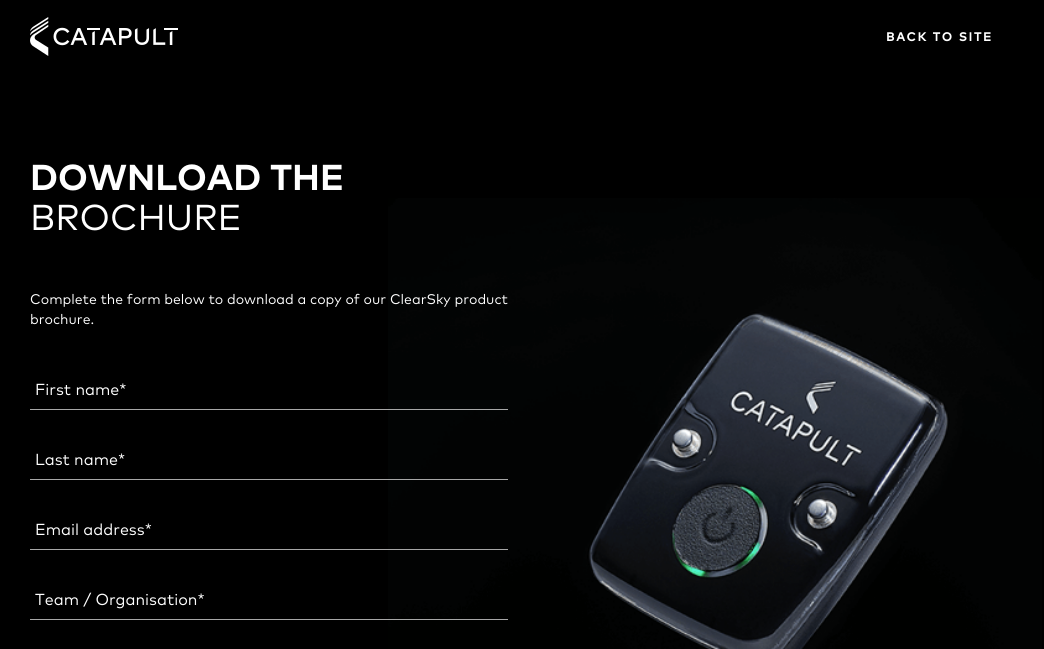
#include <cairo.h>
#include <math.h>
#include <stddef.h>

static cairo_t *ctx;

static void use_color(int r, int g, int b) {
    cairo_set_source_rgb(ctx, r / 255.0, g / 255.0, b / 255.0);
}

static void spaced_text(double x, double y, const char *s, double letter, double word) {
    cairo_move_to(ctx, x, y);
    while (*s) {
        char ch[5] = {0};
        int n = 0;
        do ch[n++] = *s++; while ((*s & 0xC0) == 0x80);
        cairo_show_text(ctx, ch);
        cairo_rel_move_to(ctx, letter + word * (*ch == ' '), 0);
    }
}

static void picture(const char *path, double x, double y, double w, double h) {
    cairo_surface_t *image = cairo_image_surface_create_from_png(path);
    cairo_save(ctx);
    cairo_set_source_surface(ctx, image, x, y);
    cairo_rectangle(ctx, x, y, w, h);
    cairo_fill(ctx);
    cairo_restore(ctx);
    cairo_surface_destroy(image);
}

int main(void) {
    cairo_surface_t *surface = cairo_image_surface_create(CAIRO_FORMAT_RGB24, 1044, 649);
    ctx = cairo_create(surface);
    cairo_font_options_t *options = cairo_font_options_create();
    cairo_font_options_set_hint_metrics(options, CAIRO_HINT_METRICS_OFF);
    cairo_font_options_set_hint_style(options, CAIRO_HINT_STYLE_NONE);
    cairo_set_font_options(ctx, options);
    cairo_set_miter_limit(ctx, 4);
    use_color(0, 0, 0);
    cairo_paint(ctx);
    picture("img1.png", 30, 17, 148, 39);
    cairo_select_font_face(ctx, "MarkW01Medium", CAIRO_FONT_SLANT_NORMAL, CAIRO_FONT_WEIGHT_BOLD);
    cairo_set_font_size(ctx, 12);
    use_color(255, 255, 255);
    spaced_text(886, 41, "BACK TO SITE", 1.75, 0);
    cairo_select_font_face(ctx, "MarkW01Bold", CAIRO_FONT_SLANT_NORMAL, CAIRO_FONT_WEIGHT_BOLD);
    cairo_set_font_size(ctx, 36);
    cairo_move_to(ctx, 30, 190);
    cairo_show_text(ctx, "DOWNLOAD THE");
    cairo_select_font_face(ctx, "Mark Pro", CAIRO_FONT_SLANT_NORMAL, CAIRO_FONT_WEIGHT_NORMAL);
    cairo_move_to(ctx, 30, 230);
    cairo_show_text(ctx, "BROCHURE");
    picture("img2.png", 388, 198, 654, 451);
    cairo_set_font_size(ctx, 14);
    cairo_move_to(ctx, 30, 304);
    cairo_show_text(ctx, "Complete the form below to download a copy of our ClearSky product");
    cairo_move_to(ctx, 30, 324);
    cairo_show_text(ctx, "brochure.");
    use_color(167, 167, 167);
    cairo_rectangle(ctx, 30, 409, 478, 1);
    cairo_fill(ctx);
    cairo_set_font_size(ctx, 16);
    use_color(255, 255, 255);
    cairo_move_to(ctx, 35, 395);
    cairo_show_text(ctx, "First name*");
    use_color(167, 167, 167);
    cairo_rectangle(ctx, 30, 479, 478, 1);
    cairo_fill(ctx);
    use_color(255, 255, 255);
    cairo_move_to(ctx, 35, 465);
    cairo_show_text(ctx, "Last name*");
    use_color(167, 167, 167);
    cairo_rectangle(ctx, 30, 549, 478, 1);
    cairo_fill(ctx);
    use_color(255, 255, 255);
    cairo_move_to(ctx, 35, 535);
    cairo_show_text(ctx, "Email address*");
    use_color(167, 167, 167);
    cairo_rectangle(ctx, 30, 619, 478, 1);
    cairo_fill(ctx);
    use_color(255, 255, 255);
    cairo_move_to(ctx, 35, 605);
    cairo_show_text(ctx, "Team / Organisation*");
    cairo_surface_write_to_png(surface, "result.png");
    cairo_font_options_destroy(options);
    cairo_destroy(ctx);
    cairo_surface_destroy(surface);
    return 0;
}
